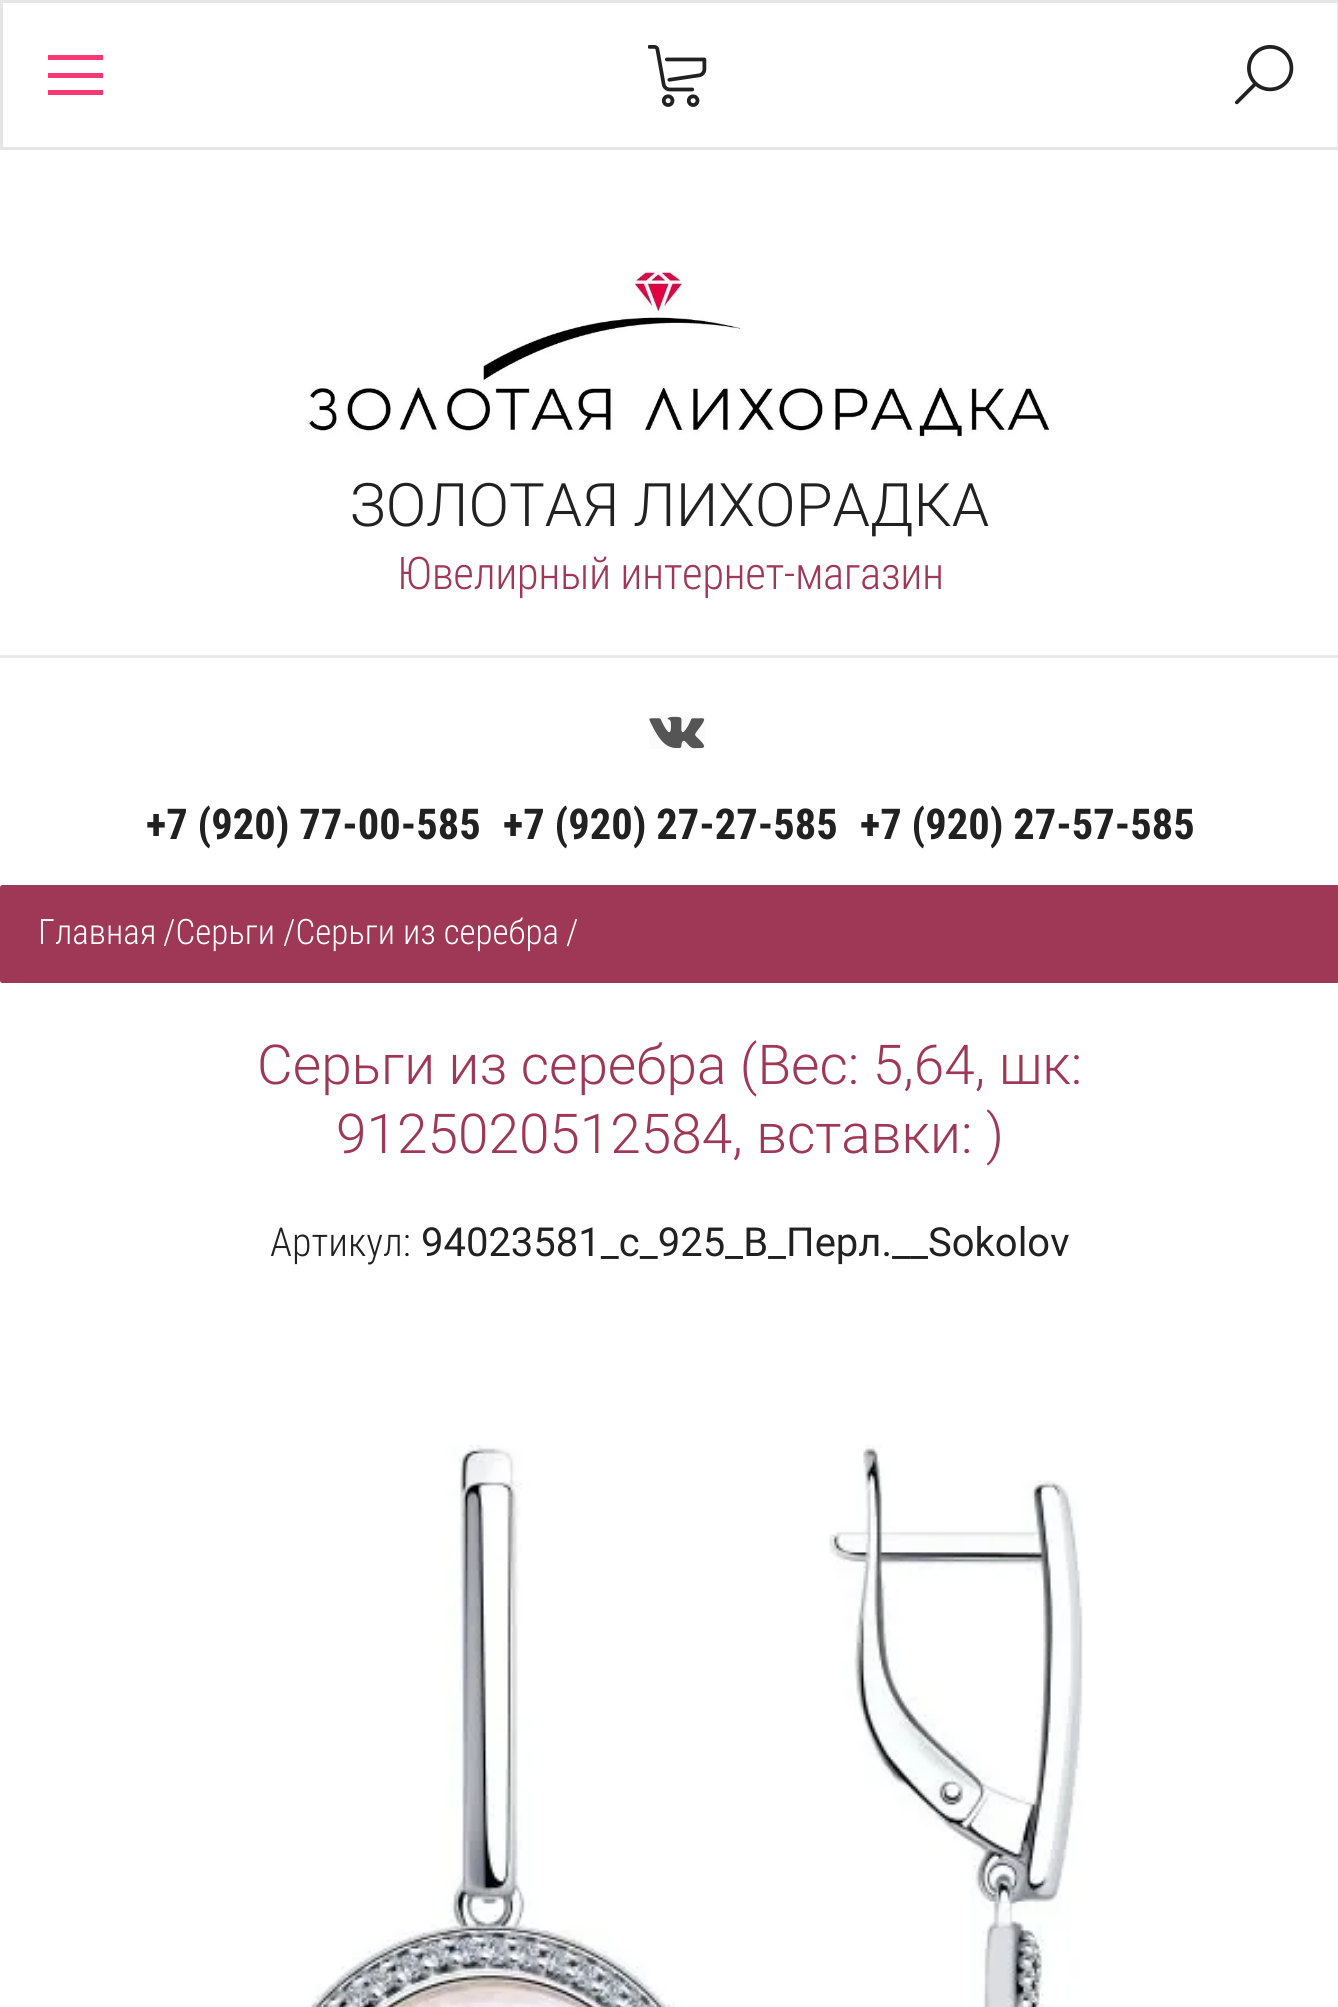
#include <cairo.h>
#include <math.h>
#include <stddef.h>

static cairo_t *ctx;

static void use_color(int r, int g, int b) {
    cairo_set_source_rgb(ctx, r / 255.0, g / 255.0, b / 255.0);
}

static void spaced_text(double x, double y, const char *s, double letter, double word) {
    cairo_move_to(ctx, x, y);
    while (*s) {
        char ch[5] = {0};
        int n = 0;
        do ch[n++] = *s++; while ((*s & 0xC0) == 0x80);
        cairo_show_text(ctx, ch);
        cairo_rel_move_to(ctx, letter + word * (*ch == ' '), 0);
    }
}

static void round_rect(double x, double y, double w, double h, double r) {
    cairo_new_sub_path(ctx);
    cairo_arc(ctx, x + w - r, y + h - r, r, 0, M_PI / 2);
    cairo_arc(ctx, x + r, y + h - r, r, M_PI / 2, M_PI);
    cairo_arc(ctx, x + r, y + r, r, M_PI, 1.5 * M_PI);
    cairo_arc(ctx, x + w - r, y + r, r, 1.5 * M_PI, 2 * M_PI);
    cairo_close_path(ctx);
}

static void picture(const char *path, double x, double y, double w, double h) {
    cairo_surface_t *image = cairo_image_surface_create_from_png(path);
    cairo_save(ctx);
    cairo_set_source_surface(ctx, image, x, y);
    cairo_rectangle(ctx, x, y, w, h);
    cairo_fill(ctx);
    cairo_restore(ctx);
    cairo_surface_destroy(image);
}

int main(void) {
    cairo_surface_t *surface = cairo_image_surface_create(CAIRO_FORMAT_RGB24, 1338, 2007);
    ctx = cairo_create(surface);
    cairo_font_options_t *options = cairo_font_options_create();
    cairo_font_options_set_hint_metrics(options, CAIRO_HINT_METRICS_OFF);
    cairo_font_options_set_hint_style(options, CAIRO_HINT_STYLE_NONE);
    cairo_set_font_options(ctx, options);
    cairo_set_miter_limit(ctx, 4);
    use_color(255, 255, 255);
    cairo_paint(ctx);
    cairo_rectangle(ctx, 1.5, 1.5, 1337, 147);
    use_color(230, 230, 230);
    cairo_set_line_width(ctx, 3);
    cairo_stroke(ctx);
    use_color(247, 57, 113);
    cairo_rectangle(ctx, 48, 73, 55, 5);
    cairo_fill(ctx);
    cairo_rectangle(ctx, 48, 55, 55, 5);
    cairo_fill(ctx);
    cairo_rectangle(ctx, 48, 90, 55, 5);
    cairo_fill(ctx);
    picture("img1.png", 648, 45, 59, 62);
    picture("img2.png", 1235, 45, 59, 60);
    picture("img3.png", 307, 271, 743, 166);
    cairo_select_font_face(ctx, "Roboto Light", CAIRO_FONT_SLANT_NORMAL, CAIRO_FONT_WEIGHT_NORMAL);
    cairo_set_font_size(ctx, 60);
    use_color(33, 33, 33);
    cairo_move_to(ctx, 350, 526);
    cairo_show_text(ctx, "ЗОЛОТАЯ ЛИХОРАДКА");
    cairo_select_font_face(ctx, "Roboto Condensed Light", CAIRO_FONT_SLANT_NORMAL, CAIRO_FONT_WEIGHT_NORMAL);
    cairo_set_font_size(ctx, 45);
    use_color(159, 56, 86);
    spaced_text(397, 589, "Ювелирный интернет-магазин", -0.5, 0);
    use_color(233, 233, 233);
    cairo_rectangle(ctx, 0, 655, 1338, 3);
    cairo_fill(ctx);
    picture("img4.png", 649, 716, 56, 33);
    cairo_select_font_face(ctx, "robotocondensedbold", CAIRO_FONT_SLANT_NORMAL, CAIRO_FONT_WEIGHT_BOLD);
    cairo_set_font_size(ctx, 42.5);
    use_color(33, 33, 33);
    cairo_move_to(ctx, 146, 839);
    cairo_show_text(ctx, "+7 (920) 77-00-585");
    cairo_move_to(ctx, 503, 839);
    cairo_show_text(ctx, "+7 (920) 27-27-585");
    cairo_move_to(ctx, 860, 839);
    cairo_show_text(ctx, "+7 (920) 27-57-585");
    use_color(158, 56, 86);
    round_rect(0, 885, 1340, 98, 2.5);
    cairo_fill(ctx);
    cairo_select_font_face(ctx, "Roboto Condensed Light", CAIRO_FONT_SLANT_NORMAL, CAIRO_FONT_WEIGHT_NORMAL);
    cairo_set_font_size(ctx, 35);
    use_color(255, 255, 255);
    cairo_move_to(ctx, 38, 944);
    cairo_show_text(ctx, "Главная");
    cairo_move_to(ctx, 163, 944);
    cairo_show_text(ctx, "/Серьги");
    cairo_move_to(ctx, 283, 944);
    cairo_show_text(ctx, "/Серьги из серебра");
    cairo_move_to(ctx, 566, 944);
    cairo_show_text(ctx, "/");
    cairo_select_font_face(ctx, "Roboto Light", CAIRO_FONT_SLANT_NORMAL, CAIRO_FONT_WEIGHT_NORMAL);
    cairo_set_font_size(ctx, 55);
    use_color(159, 56, 86);
    cairo_move_to(ctx, 257, 1084);
    cairo_show_text(ctx, "Серьги из серебра (Вес: 5,64, шк:");
    cairo_move_to(ctx, 336, 1153);
    cairo_show_text(ctx, "9125020512584, вставки: )");
    cairo_select_font_face(ctx, "Roboto Condensed Light", CAIRO_FONT_SLANT_NORMAL, CAIRO_FONT_WEIGHT_NORMAL);
    cairo_set_font_size(ctx, 40);
    use_color(33, 33, 33);
    cairo_move_to(ctx, 270, 1256);
    cairo_show_text(ctx, "Артикул:");
    cairo_select_font_face(ctx, "roboto", CAIRO_FONT_SLANT_NORMAL, CAIRO_FONT_WEIGHT_NORMAL);
    cairo_move_to(ctx, 421, 1256);
    cairo_show_text(ctx, "94023581_с_925_В_Перл.__Sokolov");
    picture("img5.png", 307, 1444, 776, 563);
    cairo_surface_write_to_png(surface, "result.png");
    cairo_font_options_destroy(options);
    cairo_destroy(ctx);
    cairo_surface_destroy(surface);
    return 0;
}
